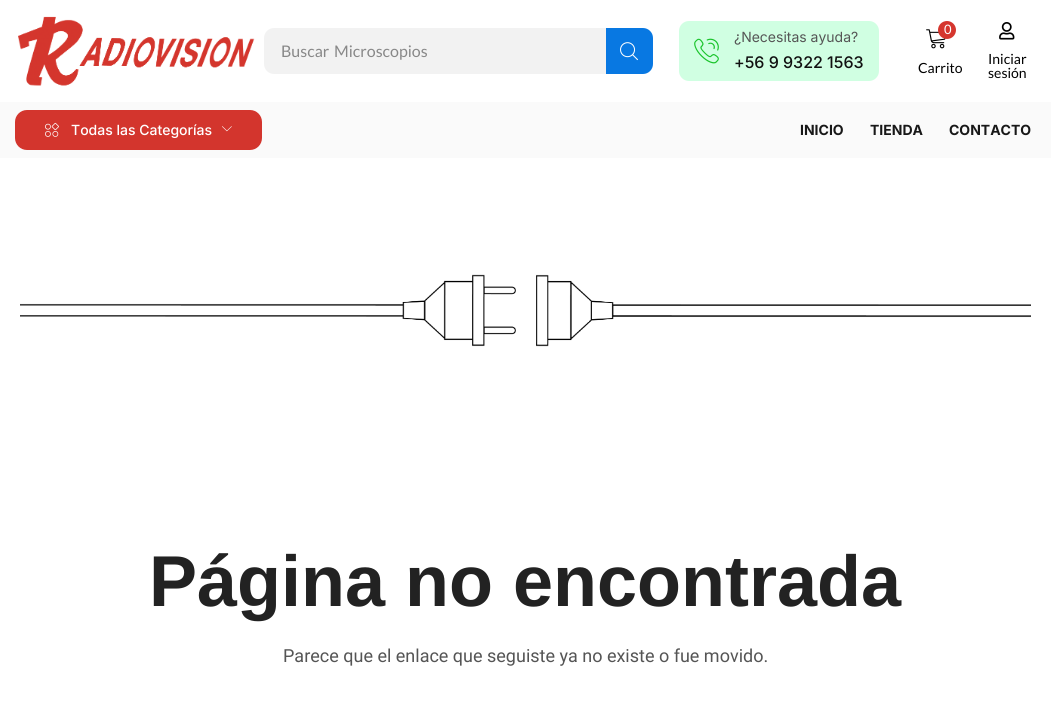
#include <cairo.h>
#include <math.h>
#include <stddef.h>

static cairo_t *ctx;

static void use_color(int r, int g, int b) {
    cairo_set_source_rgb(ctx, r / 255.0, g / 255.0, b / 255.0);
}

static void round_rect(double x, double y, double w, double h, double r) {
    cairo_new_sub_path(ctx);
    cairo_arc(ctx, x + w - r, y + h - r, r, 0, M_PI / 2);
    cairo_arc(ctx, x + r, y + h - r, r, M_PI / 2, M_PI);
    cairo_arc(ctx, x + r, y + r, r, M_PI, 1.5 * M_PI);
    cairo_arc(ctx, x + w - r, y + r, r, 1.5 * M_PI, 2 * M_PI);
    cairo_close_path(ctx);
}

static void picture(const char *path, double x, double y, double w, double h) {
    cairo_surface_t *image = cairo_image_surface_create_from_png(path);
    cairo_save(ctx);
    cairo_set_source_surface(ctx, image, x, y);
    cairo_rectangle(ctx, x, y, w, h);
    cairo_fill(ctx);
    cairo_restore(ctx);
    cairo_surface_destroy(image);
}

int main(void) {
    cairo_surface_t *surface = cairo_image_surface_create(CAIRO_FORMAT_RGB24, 1051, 705);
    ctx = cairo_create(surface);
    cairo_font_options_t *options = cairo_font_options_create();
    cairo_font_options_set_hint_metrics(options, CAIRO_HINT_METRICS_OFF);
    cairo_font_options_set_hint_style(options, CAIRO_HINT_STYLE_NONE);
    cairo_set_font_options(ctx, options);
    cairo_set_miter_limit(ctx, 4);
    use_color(255, 255, 255);
    cairo_paint(ctx);
    picture("img1.png", 18, 16, 237, 70);
    use_color(242, 242, 242);
    cairo_new_path(ctx);
    cairo_move_to(ctx, 274, 28);
    cairo_line_to(ctx, 606, 28);
    cairo_line_to(ctx, 606, 74);
    cairo_line_to(ctx, 274, 74);
    cairo_curve_to(ctx, 268.5, 74, 264, 69.5, 264, 64);
    cairo_line_to(ctx, 264, 38);
    cairo_curve_to(ctx, 264, 32.5, 268.5, 28, 274, 28);
    cairo_close_path(ctx);
    cairo_fill(ctx);
    cairo_select_font_face(ctx, "Lato", CAIRO_FONT_SLANT_NORMAL, CAIRO_FONT_WEIGHT_NORMAL);
    cairo_set_font_size(ctx, 16);
    use_color(136, 136, 136);
    cairo_move_to(ctx, 281, 57);
    cairo_show_text(ctx, "Buscar");
    cairo_move_to(ctx, 334, 57);
    cairo_show_text(ctx, "Microscopios");
    use_color(8, 120, 226);
    cairo_new_path(ctx);
    cairo_move_to(ctx, 606, 28);
    cairo_line_to(ctx, 643, 28);
    cairo_curve_to(ctx, 648.5, 28, 653, 32.5, 653, 38);
    cairo_line_to(ctx, 653, 64);
    cairo_curve_to(ctx, 653, 69.5, 648.5, 74, 643, 74);
    cairo_line_to(ctx, 606, 74);
    cairo_close_path(ctx);
    cairo_fill(ctx);
    picture("img2.png", 620, 42, 18, 19);
    use_color(208, 255, 226);
    round_rect(679, 21, 200, 60, 10);
    cairo_fill(ctx);
    picture("img3.png", 694, 38, 25, 26);
    cairo_select_font_face(ctx, "Inter", CAIRO_FONT_SLANT_NORMAL, CAIRO_FONT_WEIGHT_NORMAL);
    cairo_set_font_size(ctx, 14);
    use_color(85, 85, 85);
    cairo_move_to(ctx, 734, 42);
    cairo_show_text(ctx, "¿Necesitas ayuda?");
    cairo_select_font_face(ctx, "Inter Medium", CAIRO_FONT_SLANT_NORMAL, CAIRO_FONT_WEIGHT_NORMAL);
    cairo_set_font_size(ctx, 16);
    use_color(17, 17, 17);
    cairo_move_to(ctx, 734, 68);
    cairo_show_text(ctx, "+56 9 9322 1563");
    picture("img4.png", 926, 29, 20, 20);
    use_color(213, 54, 46);
    cairo_arc(ctx, 947, 30, 9, 0, 2 * M_PI);
    cairo_fill(ctx);
    cairo_select_font_face(ctx, "Lato", CAIRO_FONT_SLANT_NORMAL, CAIRO_FONT_WEIGHT_NORMAL);
    cairo_set_font_size(ctx, 13);
    use_color(255, 255, 255);
    cairo_move_to(ctx, 944, 34);
    cairo_show_text(ctx, "0");
    cairo_set_font_size(ctx, 14);
    use_color(0, 0, 0);
    cairo_move_to(ctx, 918, 73);
    cairo_show_text(ctx, "Carrito");
    picture("img5.png", 999, 22, 16, 18);
    cairo_move_to(ctx, 988, 64);
    cairo_show_text(ctx, "Iniciar");
    cairo_move_to(ctx, 988, 78);
    cairo_show_text(ctx, "sesión");
    use_color(250, 250, 250);
    cairo_rectangle(ctx, 0, 102, 1051, 56);
    cairo_fill(ctx);
    use_color(211, 53, 45);
    round_rect(15, 110, 247, 40, 12);
    cairo_fill(ctx);
    picture("img6.png", 45, 122, 14, 15);
    cairo_select_font_face(ctx, "Inter Medium", CAIRO_FONT_SLANT_NORMAL, CAIRO_FONT_WEIGHT_NORMAL);
    use_color(255, 255, 255);
    cairo_move_to(ctx, 71, 135);
    cairo_show_text(ctx, "Todas las Categorías");
    picture("img7.png", 222, 126, 10, 6);
    cairo_select_font_face(ctx, "Inter", CAIRO_FONT_SLANT_NORMAL, CAIRO_FONT_WEIGHT_BOLD);
    use_color(24, 24, 24);
    cairo_move_to(ctx, 800, 135);
    cairo_show_text(ctx, "INICIO");
    cairo_move_to(ctx, 870, 135);
    cairo_show_text(ctx, "TIENDA");
    cairo_move_to(ctx, 949, 135);
    cairo_show_text(ctx, "CONTACTO");
    picture("img8.png", 20, 274, 496, 73);
    picture("img9.png", 536, 274, 495, 73);
    cairo_select_font_face(ctx, "Liberation Sans", CAIRO_FONT_SLANT_NORMAL, CAIRO_FONT_WEIGHT_BOLD);
    cairo_set_font_size(ctx, 72);
    use_color(34, 34, 34);
    cairo_move_to(ctx, 149, 606);
    cairo_show_text(ctx, "Página no encontrada");
    cairo_select_font_face(ctx, "Roboto", CAIRO_FONT_SLANT_NORMAL, CAIRO_FONT_WEIGHT_NORMAL);
    cairo_set_font_size(ctx, 18);
    use_color(85, 85, 85);
    cairo_move_to(ctx, 283, 662);
    cairo_show_text(ctx, "Parece que el enlace que seguiste ya no existe o fue movido.");
    cairo_surface_write_to_png(surface, "result.png");
    cairo_font_options_destroy(options);
    cairo_destroy(ctx);
    cairo_surface_destroy(surface);
    return 0;
}
